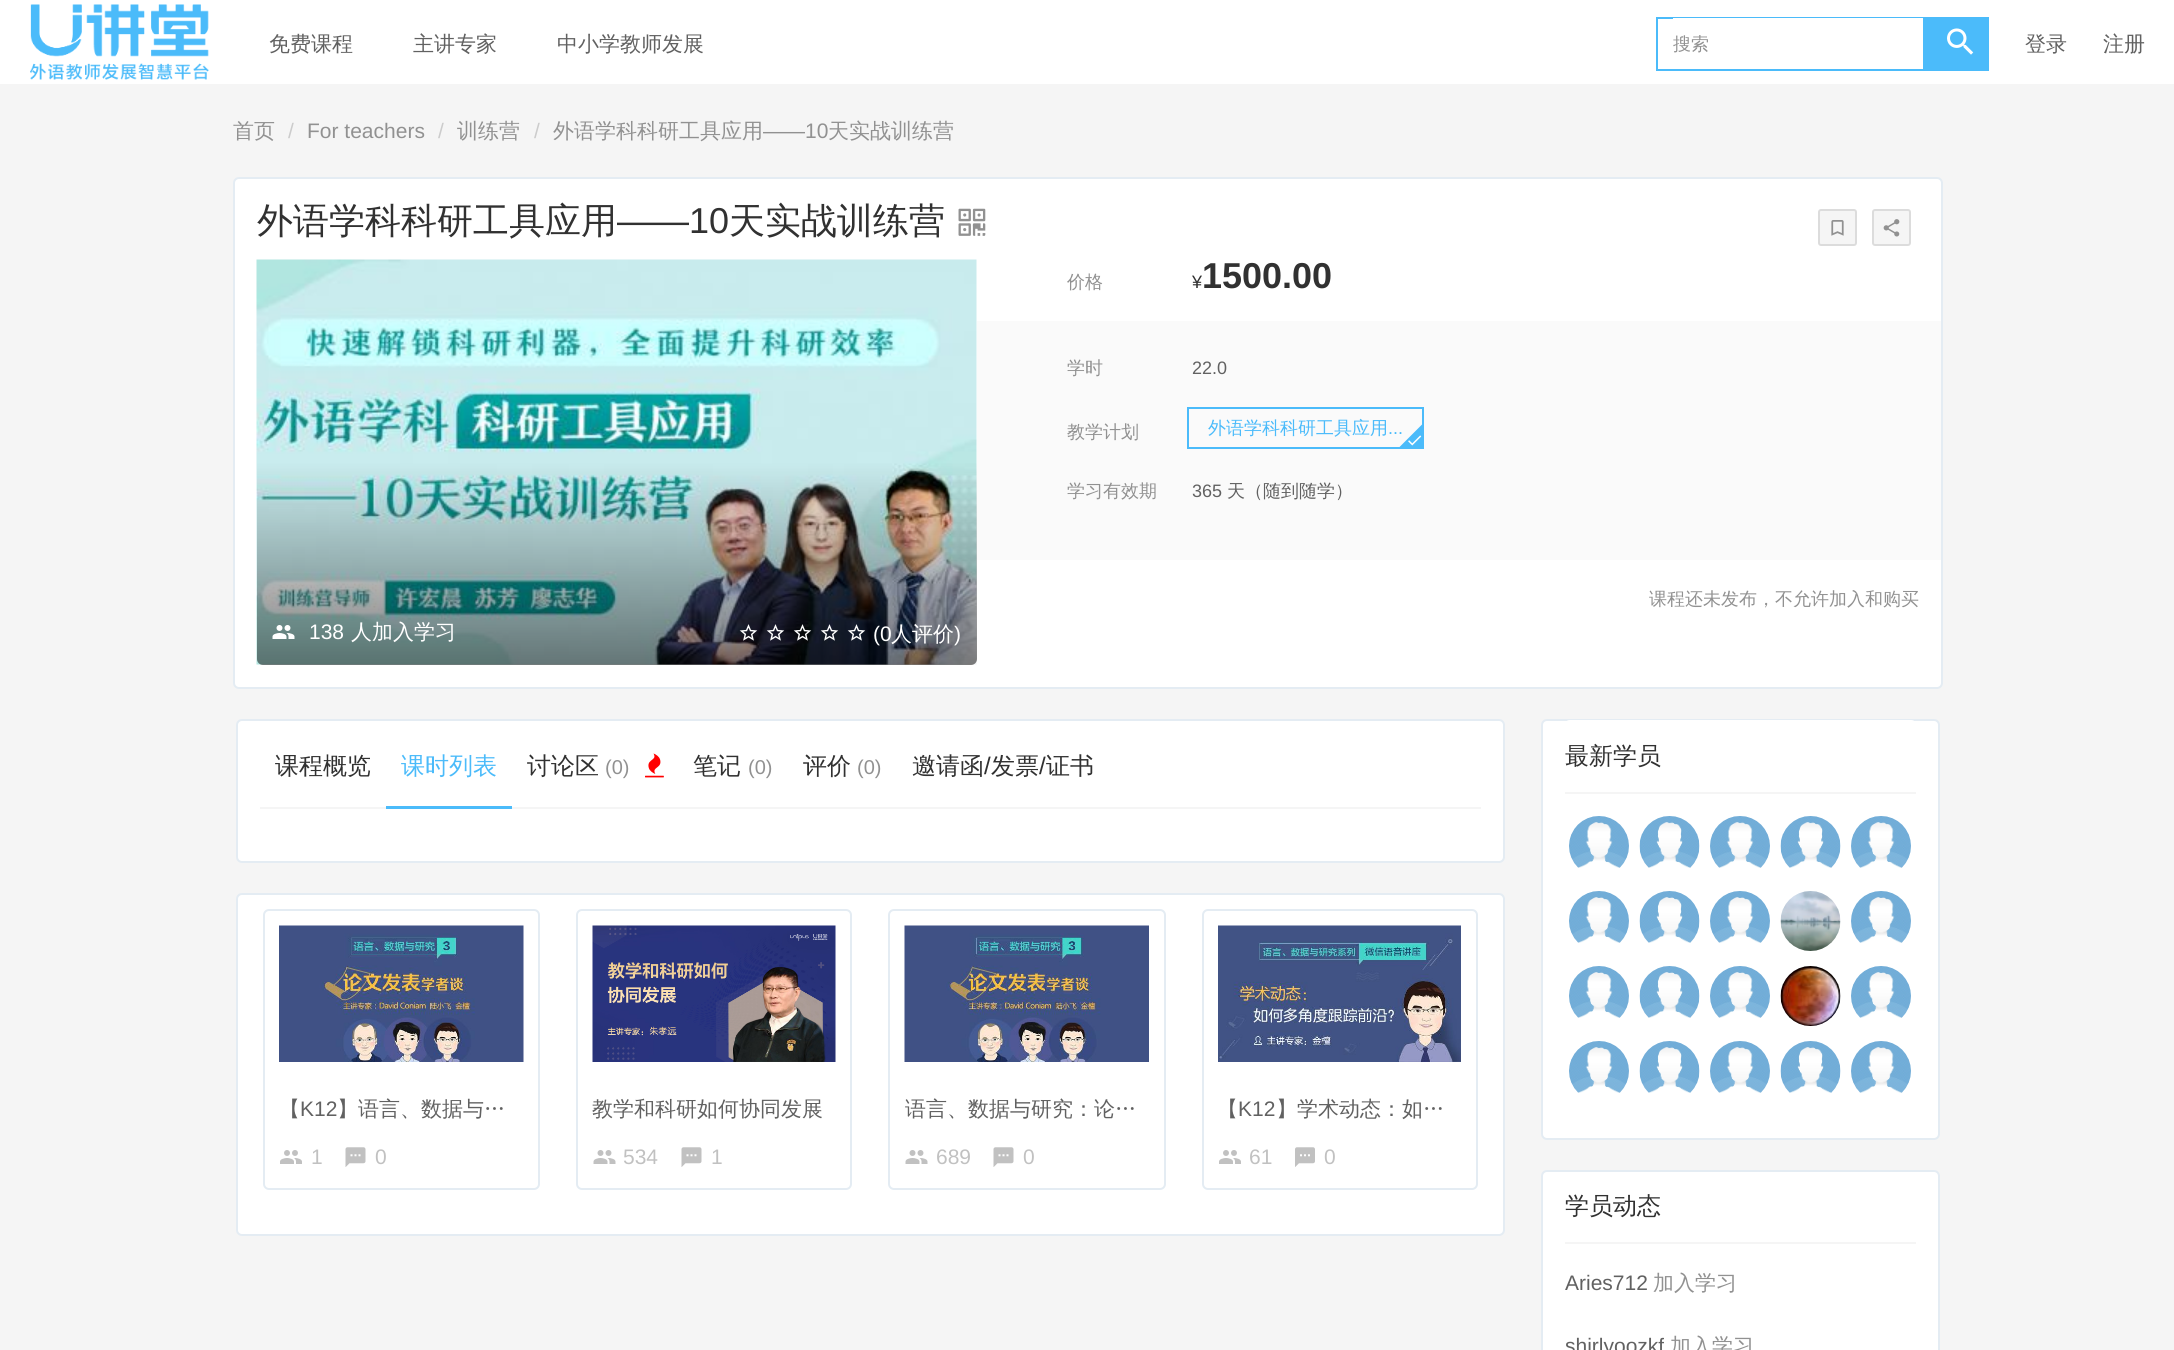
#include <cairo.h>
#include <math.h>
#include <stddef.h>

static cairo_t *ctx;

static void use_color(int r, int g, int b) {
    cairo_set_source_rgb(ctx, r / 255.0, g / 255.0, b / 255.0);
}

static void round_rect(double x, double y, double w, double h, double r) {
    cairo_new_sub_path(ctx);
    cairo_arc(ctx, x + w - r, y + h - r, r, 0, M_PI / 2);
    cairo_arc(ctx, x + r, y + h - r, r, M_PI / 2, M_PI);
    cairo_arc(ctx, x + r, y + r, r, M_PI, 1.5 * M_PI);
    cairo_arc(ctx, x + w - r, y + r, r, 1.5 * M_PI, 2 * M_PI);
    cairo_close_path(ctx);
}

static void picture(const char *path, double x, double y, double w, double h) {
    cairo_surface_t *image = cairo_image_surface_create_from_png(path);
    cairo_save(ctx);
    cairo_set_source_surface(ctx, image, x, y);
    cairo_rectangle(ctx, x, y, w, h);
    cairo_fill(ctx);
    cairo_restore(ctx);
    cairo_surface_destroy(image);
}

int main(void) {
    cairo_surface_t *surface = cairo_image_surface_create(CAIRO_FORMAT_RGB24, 2174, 1350);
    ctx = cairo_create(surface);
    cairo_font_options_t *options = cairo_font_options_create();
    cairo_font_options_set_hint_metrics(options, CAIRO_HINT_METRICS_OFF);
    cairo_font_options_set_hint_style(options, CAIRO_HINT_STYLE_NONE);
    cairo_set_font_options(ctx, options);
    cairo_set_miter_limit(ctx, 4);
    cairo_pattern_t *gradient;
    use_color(245, 245, 245);
    cairo_paint(ctx);
    use_color(255, 255, 255);
    cairo_rectangle(ctx, 0, 0, 2174, 84);
    cairo_fill(ctx);
    picture("img1.png", 30, 4, 179, 76);
    cairo_select_font_face(ctx, "WenQuanYi Zen Hei Medium", CAIRO_FONT_SLANT_NORMAL, CAIRO_FONT_WEIGHT_NORMAL);
    cairo_set_font_size(ctx, 21);
    use_color(97, 97, 97);
    cairo_move_to(ctx, 269, 51);
    cairo_show_text(ctx, "免费课程");
    cairo_move_to(ctx, 413, 51);
    cairo_show_text(ctx, "主讲专家");
    cairo_move_to(ctx, 557, 51);
    cairo_show_text(ctx, "中小学教师发展");
    cairo_rectangle(ctx, 1657, 18, 331, 52);
    use_color(75, 187, 250);
    cairo_stroke(ctx);
    use_color(255, 255, 255);
    cairo_rectangle(ctx, 1673, 18, 250, 1);
    cairo_fill(ctx);
    cairo_set_font_size(ctx, 18);
    use_color(145, 145, 145);
    cairo_move_to(ctx, 1673, 50);
    cairo_show_text(ctx, "搜索");
    use_color(75, 187, 250);
    cairo_rectangle(ctx, 1923, 19, 64, 50);
    cairo_fill(ctx);
    picture("img2.png", 1947, 28, 27, 27);
    cairo_set_font_size(ctx, 21);
    use_color(97, 97, 97);
    cairo_move_to(ctx, 2025, 51);
    cairo_show_text(ctx, "登录");
    cairo_move_to(ctx, 2103, 51);
    cairo_show_text(ctx, "注册");
    use_color(145, 145, 145);
    cairo_move_to(ctx, 233, 138);
    cairo_show_text(ctx, "首页");
    cairo_select_font_face(ctx, "Liberation Sans", CAIRO_FONT_SLANT_NORMAL, CAIRO_FONT_WEIGHT_NORMAL);
    use_color(204, 204, 204);
    cairo_move_to(ctx, 288, 138);
    cairo_show_text(ctx, "/");
    use_color(145, 145, 145);
    cairo_move_to(ctx, 307, 138);
    cairo_show_text(ctx, "For teachers");
    use_color(204, 204, 204);
    cairo_move_to(ctx, 438, 138);
    cairo_show_text(ctx, "/");
    cairo_select_font_face(ctx, "WenQuanYi Zen Hei Medium", CAIRO_FONT_SLANT_NORMAL, CAIRO_FONT_WEIGHT_NORMAL);
    use_color(145, 145, 145);
    cairo_move_to(ctx, 457, 138);
    cairo_show_text(ctx, "训练营");
    cairo_select_font_face(ctx, "Liberation Sans", CAIRO_FONT_SLANT_NORMAL, CAIRO_FONT_WEIGHT_NORMAL);
    use_color(204, 204, 204);
    cairo_move_to(ctx, 534, 138);
    cairo_show_text(ctx, "/");
    cairo_select_font_face(ctx, "WenQuanYi Zen Hei Medium", CAIRO_FONT_SLANT_NORMAL, CAIRO_FONT_WEIGHT_NORMAL);
    use_color(145, 145, 145);
    cairo_move_to(ctx, 553, 138);
    cairo_show_text(ctx, "外语学科科研工具应用");
    cairo_select_font_face(ctx, "Liberation Sans", CAIRO_FONT_SLANT_NORMAL, CAIRO_FONT_WEIGHT_NORMAL);
    cairo_move_to(ctx, 763, 138);
    cairo_show_text(ctx, "——10");
    cairo_select_font_face(ctx, "WenQuanYi Zen Hei Medium", CAIRO_FONT_SLANT_NORMAL, CAIRO_FONT_WEIGHT_NORMAL);
    cairo_move_to(ctx, 828, 138);
    cairo_show_text(ctx, "天实战训练营");
    use_color(255, 255, 255);
    round_rect(234, 178, 1708, 510, 5);
    cairo_fill_preserve(ctx);
    use_color(228, 236, 243);
    cairo_stroke(ctx);
    cairo_set_font_size(ctx, 36);
    use_color(49, 49, 49);
    cairo_move_to(ctx, 257, 233);
    cairo_show_text(ctx, "外语学科科研工具应用");
    cairo_select_font_face(ctx, "Liberation Sans", CAIRO_FONT_SLANT_NORMAL, CAIRO_FONT_WEIGHT_NORMAL);
    cairo_move_to(ctx, 617, 233);
    cairo_show_text(ctx, "——10");
    cairo_select_font_face(ctx, "WenQuanYi Zen Hei Medium", CAIRO_FONT_SLANT_NORMAL, CAIRO_FONT_WEIGHT_NORMAL);
    cairo_move_to(ctx, 729, 233);
    cairo_show_text(ctx, "天实战训练营");
    picture("img3.png", 958, 208, 28, 28);
    use_color(245, 245, 245);
    round_rect(1819, 210, 37, 35, 2);
    cairo_fill_preserve(ctx);
    use_color(220, 220, 220);
    cairo_stroke(ctx);
    picture("img4.png", 1831, 220, 13, 16);
    use_color(245, 245, 245);
    round_rect(1873, 210, 37, 35, 2);
    cairo_fill_preserve(ctx);
    use_color(220, 220, 220);
    cairo_stroke(ctx);
    picture("img5.png", 1883, 219, 17, 18);
    cairo_set_font_size(ctx, 18);
    use_color(145, 145, 145);
    cairo_move_to(ctx, 1067, 288);
    cairo_show_text(ctx, "价格");
    cairo_select_font_face(ctx, "Liberation Sans", CAIRO_FONT_SLANT_NORMAL, CAIRO_FONT_WEIGHT_NORMAL);
    use_color(49, 49, 49);
    cairo_move_to(ctx, 1192, 288);
    cairo_show_text(ctx, "¥");
    cairo_select_font_face(ctx, "Liberation Sans", CAIRO_FONT_SLANT_NORMAL, CAIRO_FONT_WEIGHT_BOLD);
    cairo_set_font_size(ctx, 36);
    cairo_move_to(ctx, 1202, 288);
    cairo_show_text(ctx, "1500.00");
    use_color(250, 250, 250);
    cairo_rectangle(ctx, 977, 321, 964, 239);
    cairo_fill(ctx);
    cairo_select_font_face(ctx, "WenQuanYi Zen Hei Medium", CAIRO_FONT_SLANT_NORMAL, CAIRO_FONT_WEIGHT_NORMAL);
    cairo_set_font_size(ctx, 18);
    use_color(145, 145, 145);
    cairo_move_to(ctx, 1067, 374);
    cairo_show_text(ctx, "学时");
    cairo_select_font_face(ctx, "Liberation Sans", CAIRO_FONT_SLANT_NORMAL, CAIRO_FONT_WEIGHT_NORMAL);
    use_color(97, 97, 97);
    cairo_move_to(ctx, 1192, 374);
    cairo_show_text(ctx, "22.0");
    cairo_select_font_face(ctx, "WenQuanYi Zen Hei Medium", CAIRO_FONT_SLANT_NORMAL, CAIRO_FONT_WEIGHT_NORMAL);
    use_color(145, 145, 145);
    cairo_move_to(ctx, 1067, 438);
    cairo_show_text(ctx, "教学计划");
    cairo_rectangle(ctx, 1188, 408, 235, 40);
    use_color(75, 187, 250);
    cairo_stroke(ctx);
    cairo_move_to(ctx, 1208, 434);
    cairo_show_text(ctx, "外语学科科研工具应用");
    cairo_select_font_face(ctx, "Liberation Sans", CAIRO_FONT_SLANT_NORMAL, CAIRO_FONT_WEIGHT_NORMAL);
    cairo_move_to(ctx, 1388, 434);
    cairo_show_text(ctx, "...");
    cairo_new_path(ctx);
    cairo_move_to(ctx, 1422, 447);
    cairo_line_to(ctx, 1399.5, 447);
    cairo_line_to(ctx, 1422, 424.5);
    cairo_close_path(ctx);
    cairo_fill(ctx);
    picture("img6.png", 1408, 435, 14, 11);
    cairo_select_font_face(ctx, "WenQuanYi Zen Hei Medium", CAIRO_FONT_SLANT_NORMAL, CAIRO_FONT_WEIGHT_NORMAL);
    use_color(145, 145, 145);
    cairo_move_to(ctx, 1067, 497);
    cairo_show_text(ctx, "学习有效期");
    cairo_select_font_face(ctx, "Liberation Sans", CAIRO_FONT_SLANT_NORMAL, CAIRO_FONT_WEIGHT_NORMAL);
    use_color(97, 97, 97);
    cairo_move_to(ctx, 1192, 497);
    cairo_show_text(ctx, "365");
    cairo_select_font_face(ctx, "WenQuanYi Zen Hei Medium", CAIRO_FONT_SLANT_NORMAL, CAIRO_FONT_WEIGHT_NORMAL);
    cairo_move_to(ctx, 1227, 497);
    cairo_show_text(ctx, "天（随到随学）");
    use_color(145, 145, 145);
    cairo_move_to(ctx, 1649, 605);
    cairo_show_text(ctx, "课程还未发布，不允许加入和购买");
    picture("img7.png", 256, 259, 721, 406);
    gradient = cairo_pattern_create_linear(617, 259, 617, 665);
    cairo_pattern_add_color_stop_rgba(gradient, 0.5, 0, 0, 0, 0);
    cairo_pattern_add_color_stop_rgba(gradient, 1, 0, 0, 0, 0.5);
    cairo_set_source(ctx, gradient);
    cairo_pattern_destroy(gradient);
    round_rect(257, 260, 720, 405, 6);
    cairo_fill(ctx);
    picture("img8.png", 272, 625, 23, 14);
    cairo_select_font_face(ctx, "Liberation Sans", CAIRO_FONT_SLANT_NORMAL, CAIRO_FONT_WEIGHT_NORMAL);
    cairo_set_font_size(ctx, 21);
    use_color(255, 255, 255);
    cairo_move_to(ctx, 309, 639);
    cairo_show_text(ctx, "138");
    cairo_select_font_face(ctx, "WenQuanYi Zen Hei Medium", CAIRO_FONT_SLANT_NORMAL, CAIRO_FONT_WEIGHT_NORMAL);
    cairo_move_to(ctx, 351, 639);
    cairo_show_text(ctx, "人加入学习");
    picture("img9.png", 739, 624, 19, 17);
    picture("img10.png", 766, 624, 19, 17);
    picture("img11.png", 793, 624, 19, 17);
    picture("img12.png", 820, 624, 19, 17);
    picture("img13.png", 847, 624, 19, 17);
    cairo_select_font_face(ctx, "Liberation Sans", CAIRO_FONT_SLANT_NORMAL, CAIRO_FONT_WEIGHT_NORMAL);
    cairo_move_to(ctx, 873, 641);
    cairo_show_text(ctx, "(0");
    cairo_select_font_face(ctx, "WenQuanYi Zen Hei Medium", CAIRO_FONT_SLANT_NORMAL, CAIRO_FONT_WEIGHT_NORMAL);
    cairo_move_to(ctx, 891, 641);
    cairo_show_text(ctx, "人评价");
    cairo_select_font_face(ctx, "Liberation Sans", CAIRO_FONT_SLANT_NORMAL, CAIRO_FONT_WEIGHT_NORMAL);
    cairo_move_to(ctx, 954, 641);
    cairo_show_text(ctx, ")");
    round_rect(237, 720, 1267, 142, 5);
    cairo_fill_preserve(ctx);
    use_color(228, 236, 243);
    cairo_stroke(ctx);
    use_color(245, 245, 245);
    cairo_rectangle(ctx, 260, 807, 1221, 2);
    cairo_fill(ctx);
    cairo_select_font_face(ctx, "WenQuanYi Zen Hei Medium", CAIRO_FONT_SLANT_NORMAL, CAIRO_FONT_WEIGHT_NORMAL);
    cairo_set_font_size(ctx, 24);
    use_color(49, 49, 49);
    cairo_move_to(ctx, 275, 774);
    cairo_show_text(ctx, "课程概览");
    use_color(75, 187, 250);
    cairo_move_to(ctx, 401, 774);
    cairo_show_text(ctx, "课时列表");
    use_color(49, 49, 49);
    cairo_move_to(ctx, 527, 774);
    cairo_show_text(ctx, "讨论区");
    cairo_select_font_face(ctx, "Liberation Sans", CAIRO_FONT_SLANT_NORMAL, CAIRO_FONT_WEIGHT_NORMAL);
    cairo_set_font_size(ctx, 20);
    use_color(145, 145, 145);
    cairo_move_to(ctx, 605, 774);
    cairo_show_text(ctx, "(0)");
    picture("img14.png", 645, 753, 19, 25);
    cairo_select_font_face(ctx, "WenQuanYi Zen Hei Medium", CAIRO_FONT_SLANT_NORMAL, CAIRO_FONT_WEIGHT_NORMAL);
    cairo_set_font_size(ctx, 24);
    use_color(49, 49, 49);
    cairo_move_to(ctx, 693, 774);
    cairo_show_text(ctx, "笔记");
    cairo_select_font_face(ctx, "Liberation Sans", CAIRO_FONT_SLANT_NORMAL, CAIRO_FONT_WEIGHT_NORMAL);
    cairo_set_font_size(ctx, 20);
    use_color(145, 145, 145);
    cairo_move_to(ctx, 748, 774);
    cairo_show_text(ctx, "(0)");
    cairo_select_font_face(ctx, "WenQuanYi Zen Hei Medium", CAIRO_FONT_SLANT_NORMAL, CAIRO_FONT_WEIGHT_NORMAL);
    cairo_set_font_size(ctx, 24);
    use_color(49, 49, 49);
    cairo_move_to(ctx, 803, 774);
    cairo_show_text(ctx, "评价");
    cairo_select_font_face(ctx, "Liberation Sans", CAIRO_FONT_SLANT_NORMAL, CAIRO_FONT_WEIGHT_NORMAL);
    cairo_set_font_size(ctx, 20);
    use_color(145, 145, 145);
    cairo_move_to(ctx, 857, 774);
    cairo_show_text(ctx, "(0)");
    cairo_select_font_face(ctx, "WenQuanYi Zen Hei Medium", CAIRO_FONT_SLANT_NORMAL, CAIRO_FONT_WEIGHT_NORMAL);
    cairo_set_font_size(ctx, 24);
    use_color(49, 49, 49);
    cairo_move_to(ctx, 912, 774);
    cairo_show_text(ctx, "邀请函");
    cairo_select_font_face(ctx, "Liberation Sans", CAIRO_FONT_SLANT_NORMAL, CAIRO_FONT_WEIGHT_NORMAL);
    cairo_move_to(ctx, 984, 774);
    cairo_show_text(ctx, "/");
    cairo_select_font_face(ctx, "WenQuanYi Zen Hei Medium", CAIRO_FONT_SLANT_NORMAL, CAIRO_FONT_WEIGHT_NORMAL);
    cairo_move_to(ctx, 991, 774);
    cairo_show_text(ctx, "发票");
    cairo_select_font_face(ctx, "Liberation Sans", CAIRO_FONT_SLANT_NORMAL, CAIRO_FONT_WEIGHT_NORMAL);
    cairo_move_to(ctx, 1039, 774);
    cairo_show_text(ctx, "/");
    cairo_select_font_face(ctx, "WenQuanYi Zen Hei Medium", CAIRO_FONT_SLANT_NORMAL, CAIRO_FONT_WEIGHT_NORMAL);
    cairo_move_to(ctx, 1046, 774);
    cairo_show_text(ctx, "证书");
    use_color(75, 187, 250);
    cairo_rectangle(ctx, 386, 806, 126, 3);
    cairo_fill(ctx);
    use_color(255, 255, 255);
    round_rect(237, 894, 1267, 341, 5);
    cairo_fill_preserve(ctx);
    use_color(228, 236, 243);
    cairo_stroke(ctx);
    round_rect(264, 910, 275, 279, 5);
    cairo_stroke(ctx);
    picture("img15.png", 279, 925, 245, 137);
    cairo_set_font_size(ctx, 21);
    use_color(97, 97, 97);
    cairo_move_to(ctx, 279, 1116);
    cairo_show_text(ctx, "【");
    cairo_select_font_face(ctx, "Liberation Sans", CAIRO_FONT_SLANT_NORMAL, CAIRO_FONT_WEIGHT_NORMAL);
    cairo_move_to(ctx, 300, 1116);
    cairo_show_text(ctx, "K12");
    cairo_select_font_face(ctx, "WenQuanYi Zen Hei Medium", CAIRO_FONT_SLANT_NORMAL, CAIRO_FONT_WEIGHT_NORMAL);
    cairo_move_to(ctx, 337, 1116);
    cairo_show_text(ctx, "】语言、数据与…");
    picture("img16.png", 280, 1150, 22, 14);
    cairo_select_font_face(ctx, "Liberation Sans", CAIRO_FONT_SLANT_NORMAL, CAIRO_FONT_WEIGHT_NORMAL);
    use_color(193, 193, 193);
    cairo_move_to(ctx, 311, 1164);
    cairo_show_text(ctx, "1");
    picture("img17.png", 345, 1147, 21, 20);
    cairo_move_to(ctx, 375, 1164);
    cairo_show_text(ctx, "0");
    round_rect(577, 910, 274, 279, 5);
    use_color(228, 236, 243);
    cairo_stroke(ctx);
    picture("img18.png", 592, 925, 244, 137);
    cairo_select_font_face(ctx, "WenQuanYi Zen Hei Medium", CAIRO_FONT_SLANT_NORMAL, CAIRO_FONT_WEIGHT_NORMAL);
    use_color(97, 97, 97);
    cairo_move_to(ctx, 592, 1116);
    cairo_show_text(ctx, "教学和科研如何协同发展");
    picture("img19.png", 593, 1150, 23, 14);
    cairo_select_font_face(ctx, "Liberation Sans", CAIRO_FONT_SLANT_NORMAL, CAIRO_FONT_WEIGHT_NORMAL);
    use_color(193, 193, 193);
    cairo_move_to(ctx, 623, 1164);
    cairo_show_text(ctx, "534");
    picture("img17.png", 681, 1147, 21, 20);
    cairo_move_to(ctx, 711, 1164);
    cairo_show_text(ctx, "1");
    round_rect(889, 910, 276, 279, 5);
    use_color(228, 236, 243);
    cairo_stroke(ctx);
    picture("img20.png", 904, 925, 245, 137);
    cairo_select_font_face(ctx, "WenQuanYi Zen Hei Medium", CAIRO_FONT_SLANT_NORMAL, CAIRO_FONT_WEIGHT_NORMAL);
    use_color(97, 97, 97);
    cairo_move_to(ctx, 905, 1116);
    cairo_show_text(ctx, "语言、数据与研究：论…");
    picture("img19.png", 905, 1150, 23, 14);
    cairo_select_font_face(ctx, "Liberation Sans", CAIRO_FONT_SLANT_NORMAL, CAIRO_FONT_WEIGHT_NORMAL);
    use_color(193, 193, 193);
    cairo_move_to(ctx, 936, 1164);
    cairo_show_text(ctx, "689");
    picture("img17.png", 993, 1147, 21, 20);
    cairo_move_to(ctx, 1023, 1164);
    cairo_show_text(ctx, "0");
    round_rect(1203, 910, 274, 279, 5);
    use_color(228, 236, 243);
    cairo_stroke(ctx);
    picture("img21.png", 1218, 925, 243, 137);
    cairo_select_font_face(ctx, "WenQuanYi Zen Hei Medium", CAIRO_FONT_SLANT_NORMAL, CAIRO_FONT_WEIGHT_NORMAL);
    use_color(97, 97, 97);
    cairo_move_to(ctx, 1217, 1116);
    cairo_show_text(ctx, "【");
    cairo_select_font_face(ctx, "Liberation Sans", CAIRO_FONT_SLANT_NORMAL, CAIRO_FONT_WEIGHT_NORMAL);
    cairo_move_to(ctx, 1238, 1116);
    cairo_show_text(ctx, "K12");
    cairo_select_font_face(ctx, "WenQuanYi Zen Hei Medium", CAIRO_FONT_SLANT_NORMAL, CAIRO_FONT_WEIGHT_NORMAL);
    cairo_move_to(ctx, 1276, 1116);
    cairo_show_text(ctx, "】学术动态：如…");
    picture("img16.png", 1219, 1150, 22, 14);
    cairo_select_font_face(ctx, "Liberation Sans", CAIRO_FONT_SLANT_NORMAL, CAIRO_FONT_WEIGHT_NORMAL);
    use_color(193, 193, 193);
    cairo_move_to(ctx, 1249, 1164);
    cairo_show_text(ctx, "61");
    picture("img22.png", 1295, 1147, 20, 20);
    cairo_move_to(ctx, 1324, 1164);
    cairo_show_text(ctx, "0");
    use_color(255, 255, 255);
    round_rect(1542, 720, 397, 419, 5);
    cairo_fill_preserve(ctx);
    use_color(228, 236, 243);
    cairo_stroke(ctx);
    use_color(255, 255, 255);
    cairo_new_path(ctx);
    cairo_move_to(ctx, 1570, 720);
    cairo_line_to(ctx, 1911, 720);
    cairo_curve_to(ctx, 1914, 720, 1916, 722, 1916, 725);
    cairo_line_to(ctx, 1916, 794);
    cairo_line_to(ctx, 1565, 794);
    cairo_line_to(ctx, 1565, 725);
    cairo_curve_to(ctx, 1565, 722, 1567, 720, 1570, 720);
    cairo_close_path(ctx);
    cairo_fill(ctx);
    use_color(245, 245, 245);
    cairo_rectangle(ctx, 1565, 792, 351, 2);
    cairo_fill(ctx);
    cairo_select_font_face(ctx, "WenQuanYi Zen Hei Medium", CAIRO_FONT_SLANT_NORMAL, CAIRO_FONT_WEIGHT_NORMAL);
    cairo_set_font_size(ctx, 24);
    use_color(49, 49, 49);
    cairo_move_to(ctx, 1565, 764);
    cairo_show_text(ctx, "最新学员");
    picture("img23.png", 1569, 816, 60, 52);
    picture("img24.png", 1639, 816, 61, 52);
    picture("img25.png", 1710, 816, 60, 52);
    picture("img26.png", 1780, 816, 61, 52);
    picture("img27.png", 1851, 816, 60, 52);
    picture("img28.png", 1569, 891, 60, 52);
    picture("img29.png", 1639, 891, 61, 52);
    picture("img30.png", 1710, 891, 60, 52);
    picture("img31.png", 1780, 891, 61, 60);
    picture("img32.png", 1851, 891, 60, 52);
    picture("img33.png", 1569, 966, 60, 52);
    picture("img34.png", 1639, 966, 61, 52);
    picture("img35.png", 1710, 966, 60, 52);
    picture("img36.png", 1780, 966, 61, 60);
    picture("img37.png", 1851, 966, 60, 52);
    picture("img38.png", 1569, 1041, 60, 52);
    picture("img39.png", 1639, 1041, 61, 52);
    picture("img40.png", 1710, 1041, 60, 52);
    picture("img41.png", 1780, 1041, 61, 52);
    picture("img42.png", 1851, 1041, 60, 52);
    use_color(255, 255, 255);
    round_rect(1542, 1171, 397, 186, 5);
    cairo_fill_preserve(ctx);
    use_color(228, 236, 243);
    cairo_stroke(ctx);
    use_color(245, 245, 245);
    cairo_rectangle(ctx, 1565, 1242, 351, 2);
    cairo_fill(ctx);
    use_color(49, 49, 49);
    cairo_move_to(ctx, 1565, 1214);
    cairo_show_text(ctx, "学员动态");
    cairo_select_font_face(ctx, "Liberation Sans", CAIRO_FONT_SLANT_NORMAL, CAIRO_FONT_WEIGHT_NORMAL);
    cairo_set_font_size(ctx, 21);
    use_color(97, 97, 97);
    cairo_move_to(ctx, 1565, 1290);
    cairo_show_text(ctx, "Aries712");
    cairo_select_font_face(ctx, "WenQuanYi Zen Hei Medium", CAIRO_FONT_SLANT_NORMAL, CAIRO_FONT_WEIGHT_NORMAL);
    use_color(145, 145, 145);
    cairo_move_to(ctx, 1653, 1290);
    cairo_show_text(ctx, "加入学习");
    cairo_select_font_face(ctx, "Liberation Sans", CAIRO_FONT_SLANT_NORMAL, CAIRO_FONT_WEIGHT_NORMAL);
    use_color(97, 97, 97);
    cairo_move_to(ctx, 1565, 1353);
    cairo_show_text(ctx, "shirlyoozkf");
    cairo_select_font_face(ctx, "WenQuanYi Zen Hei Medium", CAIRO_FONT_SLANT_NORMAL, CAIRO_FONT_WEIGHT_NORMAL);
    use_color(145, 145, 145);
    cairo_move_to(ctx, 1670, 1353);
    cairo_show_text(ctx, "加入学习");
    cairo_surface_write_to_png(surface, "result.png");
    cairo_font_options_destroy(options);
    cairo_destroy(ctx);
    cairo_surface_destroy(surface);
    return 0;
}
